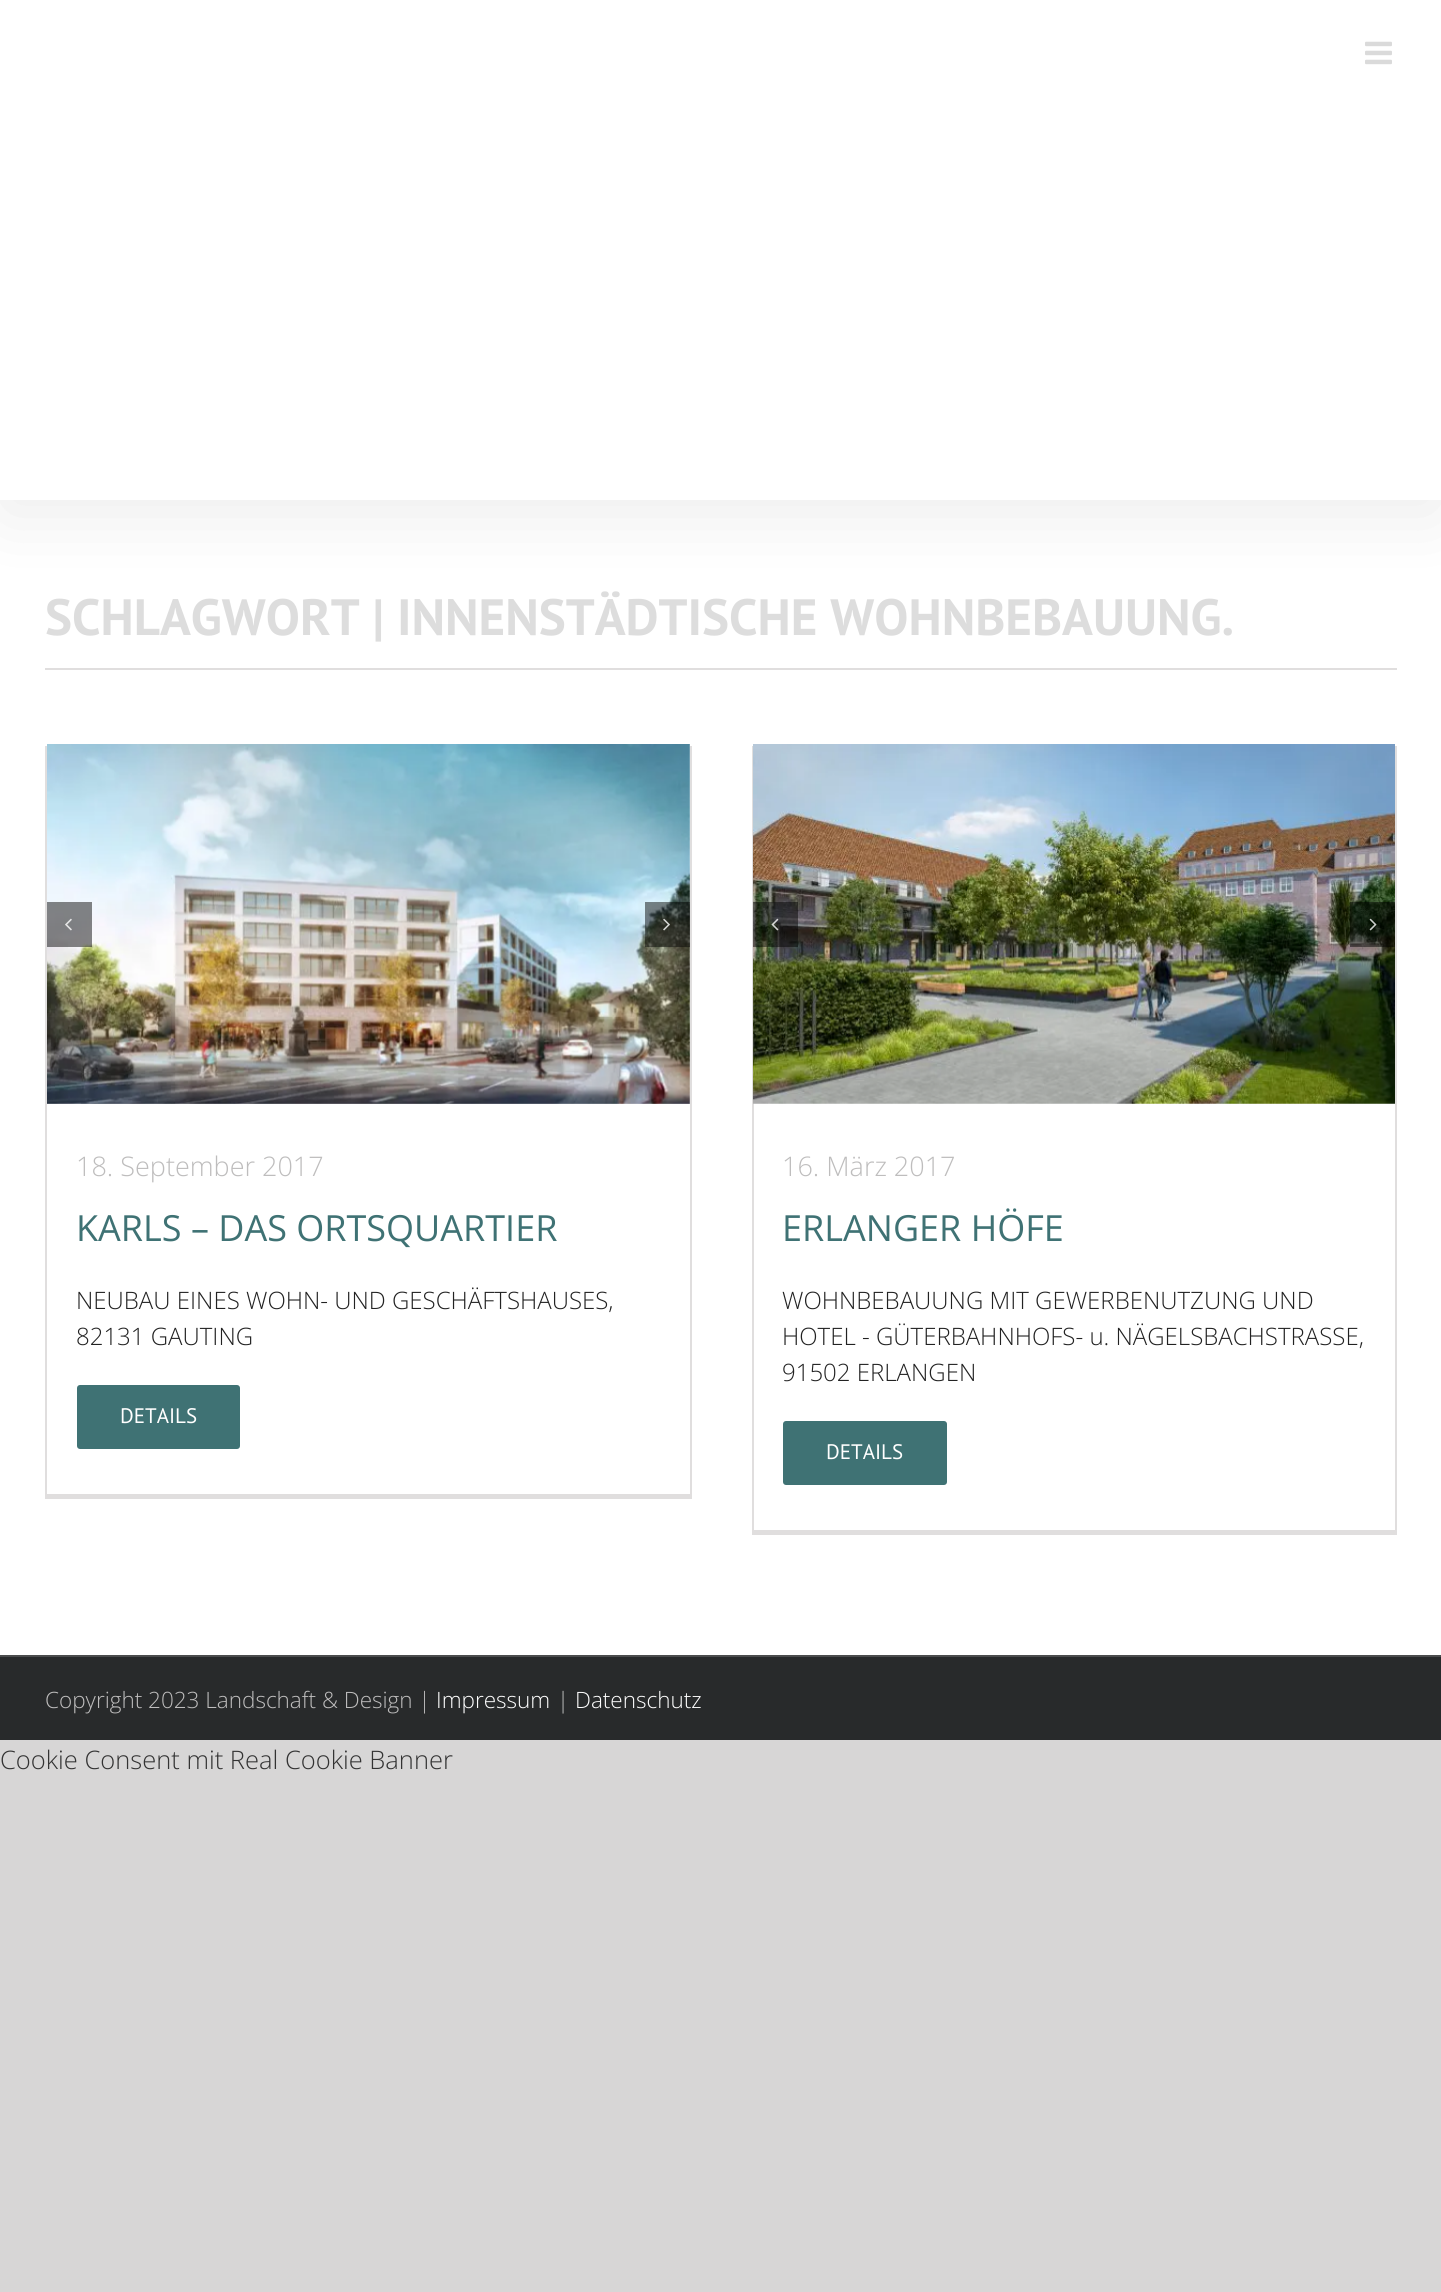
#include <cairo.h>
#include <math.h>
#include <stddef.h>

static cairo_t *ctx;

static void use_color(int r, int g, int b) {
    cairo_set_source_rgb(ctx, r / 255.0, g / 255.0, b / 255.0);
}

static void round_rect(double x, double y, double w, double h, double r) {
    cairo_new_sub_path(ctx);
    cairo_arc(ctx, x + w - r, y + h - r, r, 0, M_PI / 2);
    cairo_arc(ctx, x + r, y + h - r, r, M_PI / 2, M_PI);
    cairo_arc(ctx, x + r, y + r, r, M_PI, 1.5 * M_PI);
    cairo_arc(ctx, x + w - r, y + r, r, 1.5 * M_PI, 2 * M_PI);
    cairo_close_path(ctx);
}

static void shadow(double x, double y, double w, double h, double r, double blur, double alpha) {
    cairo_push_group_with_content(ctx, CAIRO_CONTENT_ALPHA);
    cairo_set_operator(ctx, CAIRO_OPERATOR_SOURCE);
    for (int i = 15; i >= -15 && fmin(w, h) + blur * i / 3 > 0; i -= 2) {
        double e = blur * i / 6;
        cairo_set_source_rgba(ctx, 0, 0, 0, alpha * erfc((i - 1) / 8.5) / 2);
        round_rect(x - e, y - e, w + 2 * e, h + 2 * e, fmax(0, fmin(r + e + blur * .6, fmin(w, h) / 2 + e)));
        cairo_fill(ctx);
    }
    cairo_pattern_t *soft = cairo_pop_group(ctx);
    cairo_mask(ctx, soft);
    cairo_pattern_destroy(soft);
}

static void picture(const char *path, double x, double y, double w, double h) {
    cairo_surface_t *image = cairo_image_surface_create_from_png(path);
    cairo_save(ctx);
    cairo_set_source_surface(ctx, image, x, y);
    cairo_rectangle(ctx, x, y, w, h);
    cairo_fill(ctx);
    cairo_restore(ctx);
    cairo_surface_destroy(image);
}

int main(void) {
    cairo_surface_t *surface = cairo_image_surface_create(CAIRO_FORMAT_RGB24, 1441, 2292);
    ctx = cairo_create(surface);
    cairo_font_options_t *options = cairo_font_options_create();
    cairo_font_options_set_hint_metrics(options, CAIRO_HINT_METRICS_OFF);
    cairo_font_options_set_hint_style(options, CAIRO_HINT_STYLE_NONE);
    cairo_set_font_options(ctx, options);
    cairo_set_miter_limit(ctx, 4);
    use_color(215, 214, 214);
    cairo_paint(ctx);
    use_color(255, 255, 255);
    cairo_rectangle(ctx, 0, 500, 1441, 1155);
    cairo_fill(ctx);
    use_color(0, 0, 0);
    shadow(3, 18, 1436, 494, 0, 37.5, 0.08);
    use_color(255, 255, 255);
    cairo_rectangle(ctx, 0, 0, 1441, 500);
    cairo_fill(ctx);
    picture("img1.png", 1365, 41, 27, 24);
    use_color(224, 222, 222);
    cairo_rectangle(ctx, 45, 668, 1352, 2);
    cairo_fill(ctx);
    cairo_select_font_face(ctx, "PT Sans", CAIRO_FONT_SLANT_NORMAL, CAIRO_FONT_WEIGHT_BOLD);
    cairo_set_font_size(ctx, 51);
    use_color(221, 221, 221);
    cairo_move_to(ctx, 45, 635);
    cairo_show_text(ctx, "SCHLAGWORT | INNENSTÄDTISCHE WOHNBEBAUUNG.");
    use_color(224, 222, 222);
    cairo_rectangle(ctx, 690, 746, 2, 753);
    cairo_fill(ctx);
    cairo_rectangle(ctx, 45, 1494, 647, 5);
    cairo_fill(ctx);
    cairo_rectangle(ctx, 45, 746, 2, 753);
    cairo_fill(ctx);
    picture("img2.png", 47, 744, 643, 360);
    cairo_set_source_rgba(ctx, 0, 0, 0, 0.48);
    cairo_rectangle(ctx, 47, 902, 45, 45);
    cairo_fill(ctx);
    picture("img3.png", 65, 918, 7, 13);
    cairo_rectangle(ctx, 645, 902, 45, 45);
    cairo_fill(ctx);
    picture("img4.png", 663, 918, 7, 13);
    cairo_select_font_face(ctx, "Open Sans Light", CAIRO_FONT_SLANT_NORMAL, CAIRO_FONT_WEIGHT_NORMAL);
    cairo_set_font_size(ctx, 27);
    use_color(190, 189, 189);
    cairo_move_to(ctx, 76, 1176);
    cairo_show_text(ctx, "18. September 2017");
    cairo_select_font_face(ctx, "Open Sans", CAIRO_FONT_SLANT_NORMAL, CAIRO_FONT_WEIGHT_NORMAL);
    cairo_set_font_size(ctx, 36);
    use_color(63, 114, 116);
    cairo_move_to(ctx, 76, 1241);
    cairo_show_text(ctx, "KARLS – DAS ORTSQUARTIER");
    cairo_select_font_face(ctx, "Open Sans Light", CAIRO_FONT_SLANT_NORMAL, CAIRO_FONT_WEIGHT_NORMAL);
    cairo_set_font_size(ctx, 24);
    use_color(34, 34, 34);
    cairo_move_to(ctx, 76, 1309);
    cairo_show_text(ctx, "NEUBAU EINES WOHN- UND GESCHÄFTSHAUSES,");
    cairo_move_to(ctx, 76, 1345);
    cairo_show_text(ctx, "82131 GAUTING");
    use_color(63, 114, 116);
    round_rect(77, 1385, 163, 64, 3);
    cairo_fill(ctx);
    cairo_select_font_face(ctx, "PT Sans", CAIRO_FONT_SLANT_NORMAL, CAIRO_FONT_WEIGHT_NORMAL);
    cairo_set_font_size(ctx, 21);
    use_color(255, 255, 255);
    cairo_move_to(ctx, 120, 1423);
    cairo_show_text(ctx, "DETAILS");
    use_color(224, 222, 222);
    cairo_rectangle(ctx, 1395, 746, 2, 789);
    cairo_fill(ctx);
    cairo_rectangle(ctx, 752, 1530, 645, 5);
    cairo_fill(ctx);
    cairo_rectangle(ctx, 752, 746, 2, 789);
    cairo_fill(ctx);
    picture("img5.png", 753, 744, 642, 360);
    cairo_set_source_rgba(ctx, 0, 0, 0, 0.48);
    cairo_rectangle(ctx, 753, 902, 45, 45);
    cairo_fill(ctx);
    picture("img6.png", 771, 918, 8, 13);
    cairo_rectangle(ctx, 1350, 902, 45, 45);
    cairo_fill(ctx);
    picture("img7.png", 1369, 918, 8, 13);
    cairo_select_font_face(ctx, "Open Sans Light", CAIRO_FONT_SLANT_NORMAL, CAIRO_FONT_WEIGHT_NORMAL);
    cairo_set_font_size(ctx, 27);
    use_color(190, 189, 189);
    cairo_move_to(ctx, 782, 1176);
    cairo_show_text(ctx, "16. März 2017");
    cairo_select_font_face(ctx, "Open Sans", CAIRO_FONT_SLANT_NORMAL, CAIRO_FONT_WEIGHT_NORMAL);
    cairo_set_font_size(ctx, 36);
    use_color(63, 114, 116);
    cairo_move_to(ctx, 782, 1241);
    cairo_show_text(ctx, "ERLANGER HÖFE");
    cairo_select_font_face(ctx, "Open Sans Light", CAIRO_FONT_SLANT_NORMAL, CAIRO_FONT_WEIGHT_NORMAL);
    cairo_set_font_size(ctx, 24);
    use_color(34, 34, 34);
    cairo_move_to(ctx, 782, 1309);
    cairo_show_text(ctx, "WOHNBEBAUUNG MIT GEWERBENUTZUNG UND");
    cairo_move_to(ctx, 782, 1345);
    cairo_show_text(ctx, "HOTEL - GÜTERBAHNHOFS- u. NÄGELSBACHSTRASSE,");
    cairo_move_to(ctx, 782, 1381);
    cairo_show_text(ctx, "91502 ERLANGEN");
    use_color(63, 114, 116);
    round_rect(783, 1421, 164, 64, 3);
    cairo_fill(ctx);
    cairo_select_font_face(ctx, "PT Sans", CAIRO_FONT_SLANT_NORMAL, CAIRO_FONT_WEIGHT_NORMAL);
    cairo_set_font_size(ctx, 21);
    use_color(255, 255, 255);
    cairo_move_to(ctx, 826, 1459);
    cairo_show_text(ctx, "DETAILS");
    use_color(40, 42, 43);
    cairo_rectangle(ctx, 0, 1657, 1441, 83);
    cairo_fill(ctx);
    use_color(75, 76, 77);
    cairo_rectangle(ctx, 0, 1655, 1441, 2);
    cairo_fill(ctx);
    cairo_select_font_face(ctx, "Open Sans Light", CAIRO_FONT_SLANT_NORMAL, CAIRO_FONT_WEIGHT_NORMAL);
    cairo_set_font_size(ctx, 22.5);
    use_color(190, 189, 189);
    cairo_move_to(ctx, 45, 1708);
    cairo_show_text(ctx, "Copyright 2023 Landschaft & Design |");
    use_color(255, 255, 255);
    cairo_move_to(ctx, 436, 1708);
    cairo_show_text(ctx, "Impressum");
    use_color(190, 189, 189);
    cairo_move_to(ctx, 557, 1708);
    cairo_show_text(ctx, "|");
    use_color(255, 255, 255);
    cairo_move_to(ctx, 575, 1708);
    cairo_show_text(ctx, "Datenschutz");
    cairo_set_font_size(ctx, 25.5);
    use_color(51, 51, 51);
    cairo_move_to(ctx, 0, 1769);
    cairo_show_text(ctx, "Cookie Consent mit Real Cookie Banner");
    cairo_surface_write_to_png(surface, "result.png");
    cairo_font_options_destroy(options);
    cairo_destroy(ctx);
    cairo_surface_destroy(surface);
    return 0;
}
